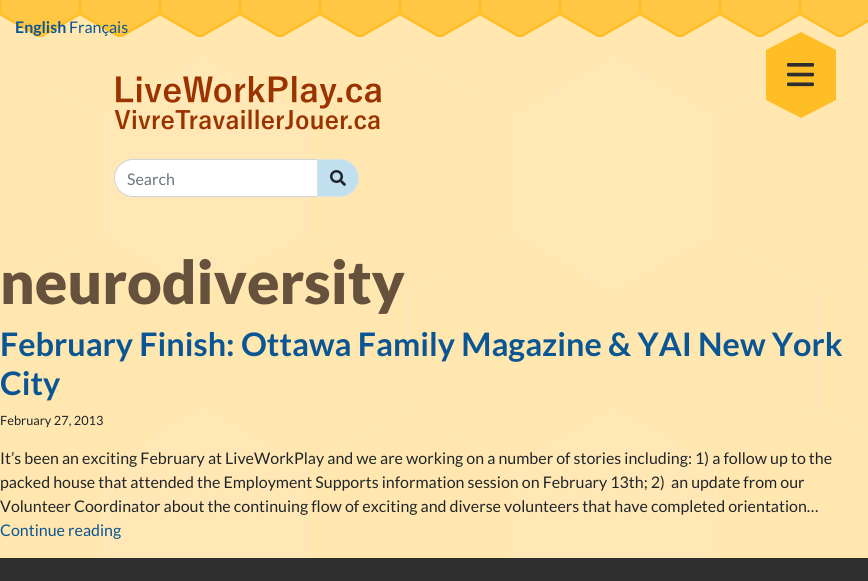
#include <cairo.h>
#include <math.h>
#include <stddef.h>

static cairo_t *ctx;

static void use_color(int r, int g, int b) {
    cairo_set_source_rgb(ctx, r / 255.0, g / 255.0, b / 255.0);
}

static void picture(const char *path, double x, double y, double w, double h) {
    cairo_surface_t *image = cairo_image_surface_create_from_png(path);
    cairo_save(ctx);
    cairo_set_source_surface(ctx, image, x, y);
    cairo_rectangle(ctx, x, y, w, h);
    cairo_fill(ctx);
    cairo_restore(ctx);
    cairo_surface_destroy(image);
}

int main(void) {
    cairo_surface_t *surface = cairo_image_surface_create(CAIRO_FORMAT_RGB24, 868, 581);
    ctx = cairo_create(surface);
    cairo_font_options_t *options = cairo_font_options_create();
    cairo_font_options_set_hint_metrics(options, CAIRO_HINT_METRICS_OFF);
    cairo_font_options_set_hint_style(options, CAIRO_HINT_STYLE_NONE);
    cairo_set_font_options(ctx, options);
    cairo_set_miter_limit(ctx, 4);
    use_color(255, 255, 255);
    cairo_paint(ctx);
    picture("img1.png", 0, 15, 868, 543);
    picture("img2.png", 0, 0, 868, 37);
    cairo_select_font_face(ctx, "Lato", CAIRO_FONT_SLANT_NORMAL, CAIRO_FONT_WEIGHT_BOLD);
    cairo_set_font_size(ctx, 16);
    use_color(10, 85, 147);
    cairo_move_to(ctx, 15, 33);
    cairo_show_text(ctx, "English");
    cairo_select_font_face(ctx, "Lato", CAIRO_FONT_SLANT_NORMAL, CAIRO_FONT_WEIGHT_NORMAL);
    cairo_move_to(ctx, 69, 33);
    cairo_show_text(ctx, "Français");
    picture("img3.png", 114, 76, 267, 54);
    use_color(255, 190, 37);
    cairo_new_path(ctx);
    cairo_move_to(ctx, 836, 50);
    cairo_line_to(ctx, 766, 50);
    cairo_line_to(ctx, 801, 32);
    cairo_close_path(ctx);
    cairo_fill(ctx);
    cairo_rectangle(ctx, 766, 50, 70, 50);
    cairo_fill(ctx);
    picture("img4.png", 787, 63, 27, 24);
    cairo_new_path(ctx);
    cairo_move_to(ctx, 766, 100);
    cairo_line_to(ctx, 836, 100);
    cairo_line_to(ctx, 801, 118);
    cairo_close_path(ctx);
    cairo_fill(ctx);
    use_color(255, 255, 255);
    cairo_new_path(ctx);
    cairo_move_to(ctx, 133, 159.5);
    cairo_line_to(ctx, 317.5, 159.5);
    cairo_line_to(ctx, 317.5, 196.5);
    cairo_line_to(ctx, 133, 196.5);
    cairo_curve_to(ctx, 123, 196.5, 114.5, 188, 114.5, 178);
    cairo_curve_to(ctx, 114.5, 168, 123, 159.5, 133, 159.5);
    cairo_close_path(ctx);
    cairo_fill_preserve(ctx);
    use_color(206, 212, 218);
    cairo_set_line_width(ctx, 1);
    cairo_stroke(ctx);
    use_color(108, 117, 125);
    cairo_move_to(ctx, 127, 185);
    cairo_show_text(ctx, "Search");
    use_color(193, 224, 239);
    cairo_new_path(ctx);
    cairo_move_to(ctx, 317.5, 159.5);
    cairo_line_to(ctx, 340, 159.5);
    cairo_curve_to(ctx, 350, 159.5, 358.5, 168, 358.5, 178);
    cairo_curve_to(ctx, 358.5, 188, 350, 196.5, 340, 196.5);
    cairo_line_to(ctx, 317.5, 196.5);
    cairo_close_path(ctx);
    cairo_fill_preserve(ctx);
    use_color(222, 226, 230);
    cairo_stroke(ctx);
    picture("img5.png", 330, 170, 16, 16);
    cairo_select_font_face(ctx, "Lato Black", CAIRO_FONT_SLANT_NORMAL, CAIRO_FONT_WEIGHT_NORMAL);
    cairo_set_font_size(ctx, 60);
    use_color(102, 81, 61);
    cairo_move_to(ctx, 0, 304);
    cairo_show_text(ctx, "neurodiversity");
    cairo_select_font_face(ctx, "Lato", CAIRO_FONT_SLANT_NORMAL, CAIRO_FONT_WEIGHT_BOLD);
    cairo_set_font_size(ctx, 32.4);
    use_color(10, 85, 147);
    cairo_move_to(ctx, 0, 356);
    cairo_show_text(ctx, "February Finish: Ottawa Family Magazine & YAI New York");
    cairo_move_to(ctx, 0, 395);
    cairo_show_text(ctx, "City");
    cairo_select_font_face(ctx, "Lato", CAIRO_FONT_SLANT_NORMAL, CAIRO_FONT_WEIGHT_NORMAL);
    cairo_set_font_size(ctx, 12.75);
    use_color(33, 37, 41);
    cairo_move_to(ctx, 0, 425);
    cairo_show_text(ctx, "February 27, 2013");
    cairo_set_font_size(ctx, 16);
    cairo_move_to(ctx, 0, 464);
    cairo_show_text(ctx, "It’s been an exciting February at LiveWorkPlay and we are working on a number of stories including: 1) a follow up to the");
    cairo_move_to(ctx, 0, 488);
    cairo_show_text(ctx, "packed house that attended the Employment Supports information session on February 13th; 2)  an update from our");
    cairo_move_to(ctx, 0, 512);
    cairo_show_text(ctx, "Volunteer Coordinator about the continuing flow of exciting and diverse volunteers that have completed orientation…");
    use_color(10, 85, 147);
    cairo_move_to(ctx, 0, 536);
    cairo_show_text(ctx, "Continue reading");
    use_color(46, 46, 46);
    cairo_rectangle(ctx, 0, 558, 868, 23);
    cairo_fill(ctx);
    cairo_surface_write_to_png(surface, "result.png");
    cairo_font_options_destroy(options);
    cairo_destroy(ctx);
    cairo_surface_destroy(surface);
    return 0;
}
